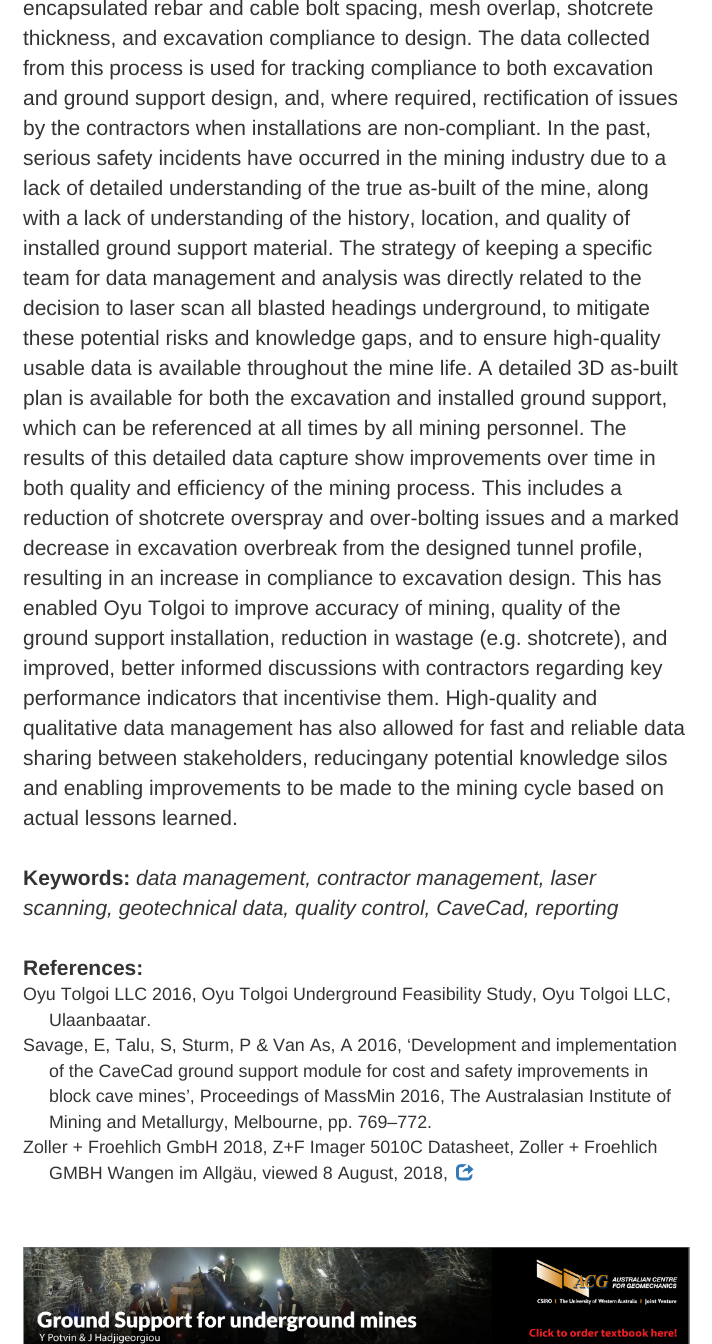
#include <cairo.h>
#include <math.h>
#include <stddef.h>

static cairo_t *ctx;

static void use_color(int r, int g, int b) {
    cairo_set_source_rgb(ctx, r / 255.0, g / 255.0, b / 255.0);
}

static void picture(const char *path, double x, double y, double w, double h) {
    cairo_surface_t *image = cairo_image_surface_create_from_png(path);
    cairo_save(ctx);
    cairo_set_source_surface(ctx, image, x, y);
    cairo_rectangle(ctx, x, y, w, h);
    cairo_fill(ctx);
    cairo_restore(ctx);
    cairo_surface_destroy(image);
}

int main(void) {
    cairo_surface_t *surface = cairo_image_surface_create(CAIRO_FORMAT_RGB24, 712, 1344);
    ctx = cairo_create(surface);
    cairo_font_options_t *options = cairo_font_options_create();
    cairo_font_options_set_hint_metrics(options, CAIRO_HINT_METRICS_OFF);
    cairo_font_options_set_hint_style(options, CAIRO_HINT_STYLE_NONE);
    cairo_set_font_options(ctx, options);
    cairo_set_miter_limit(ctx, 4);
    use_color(255, 255, 255);
    cairo_paint(ctx);
    cairo_select_font_face(ctx, "Liberation Sans", CAIRO_FONT_SLANT_NORMAL, CAIRO_FONT_WEIGHT_NORMAL);
    cairo_set_font_size(ctx, 21);
    use_color(51, 51, 51);
    cairo_move_to(ctx, 23, 15);
    cairo_show_text(ctx, "encapsulated rebar and cable bolt spacing, mesh overlap, shotcrete");
    cairo_move_to(ctx, 23, 45);
    cairo_show_text(ctx, "thickness, and excavation compliance to design. The data collected");
    cairo_move_to(ctx, 23, 75);
    cairo_show_text(ctx, "from this process is used for tracking compliance to both excavation");
    cairo_move_to(ctx, 23, 105);
    cairo_show_text(ctx, "and ground support design, and, where required, rectification of issues");
    cairo_move_to(ctx, 23, 135);
    cairo_show_text(ctx, "by the contractors when installations are non-compliant. In the past,");
    cairo_move_to(ctx, 23, 165);
    cairo_show_text(ctx, "serious safety incidents have occurred in the mining industry due to a");
    cairo_move_to(ctx, 23, 195);
    cairo_show_text(ctx, "lack of detailed understanding of the true as-built of the mine, along");
    cairo_move_to(ctx, 23, 225);
    cairo_show_text(ctx, "with a lack of understanding of the history, location, and quality of");
    cairo_move_to(ctx, 23, 255);
    cairo_show_text(ctx, "installed ground support material. The strategy of keeping a specific");
    cairo_move_to(ctx, 23, 285);
    cairo_show_text(ctx, "team for data management and analysis was directly related to the");
    cairo_move_to(ctx, 23, 315);
    cairo_show_text(ctx, "decision to laser scan all blasted headings underground, to mitigate");
    cairo_move_to(ctx, 23, 345);
    cairo_show_text(ctx, "these potential risks and knowledge gaps, and to ensure high-quality");
    cairo_move_to(ctx, 23, 375);
    cairo_show_text(ctx, "usable data is available throughout the mine life. A detailed 3D as-built");
    cairo_move_to(ctx, 23, 405);
    cairo_show_text(ctx, "plan is available for both the excavation and installed ground support,");
    cairo_move_to(ctx, 23, 435);
    cairo_show_text(ctx, "which can be referenced at all times by all mining personnel. The");
    cairo_move_to(ctx, 23, 465);
    cairo_show_text(ctx, "results of this detailed data capture show improvements over time in");
    cairo_move_to(ctx, 23, 495);
    cairo_show_text(ctx, "both quality and efficiency of the mining process. This includes a");
    cairo_move_to(ctx, 23, 525);
    cairo_show_text(ctx, "reduction of shotcrete overspray and over-bolting issues and a marked");
    cairo_move_to(ctx, 23, 555);
    cairo_show_text(ctx, "decrease in excavation overbreak from the designed tunnel profile,");
    cairo_move_to(ctx, 23, 585);
    cairo_show_text(ctx, "resulting in an increase in compliance to excavation design. This has");
    cairo_move_to(ctx, 23, 615);
    cairo_show_text(ctx, "enabled Oyu Tolgoi to improve accuracy of mining, quality of the");
    cairo_move_to(ctx, 23, 645);
    cairo_show_text(ctx, "ground support installation, reduction in wastage (e.g. shotcrete), and");
    cairo_move_to(ctx, 23, 675);
    cairo_show_text(ctx, "improved, better informed discussions with contractors regarding key");
    cairo_move_to(ctx, 23, 705);
    cairo_show_text(ctx, "performance indicators that incentivise them. High-quality and");
    cairo_move_to(ctx, 23, 735);
    cairo_show_text(ctx, "qualitative data management has also allowed for fast and reliable data");
    cairo_move_to(ctx, 23, 765);
    cairo_show_text(ctx, "sharing between stakeholders, reducingany potential knowledge silos");
    cairo_move_to(ctx, 23, 795);
    cairo_show_text(ctx, "and enabling improvements to be made to the mining cycle based on");
    cairo_move_to(ctx, 23, 825);
    cairo_show_text(ctx, "actual lessons learned.");
    cairo_select_font_face(ctx, "Liberation Sans", CAIRO_FONT_SLANT_NORMAL, CAIRO_FONT_WEIGHT_BOLD);
    cairo_move_to(ctx, 23, 885);
    cairo_show_text(ctx, "Keywords:");
    cairo_select_font_face(ctx, "Liberation Sans", CAIRO_FONT_SLANT_ITALIC, CAIRO_FONT_WEIGHT_NORMAL);
    cairo_move_to(ctx, 136, 885);
    cairo_show_text(ctx, "data management, contractor management, laser");
    cairo_move_to(ctx, 23, 915);
    cairo_show_text(ctx, "scanning, geotechnical data, quality control, CaveCad, reporting");
    cairo_select_font_face(ctx, "Liberation Sans", CAIRO_FONT_SLANT_NORMAL, CAIRO_FONT_WEIGHT_BOLD);
    cairo_move_to(ctx, 23, 975);
    cairo_show_text(ctx, "References:");
    cairo_select_font_face(ctx, "Liberation Sans", CAIRO_FONT_SLANT_NORMAL, CAIRO_FONT_WEIGHT_NORMAL);
    cairo_set_font_size(ctx, 17.85);
    cairo_move_to(ctx, 23, 1000);
    cairo_show_text(ctx, "Oyu Tolgoi LLC 2016, Oyu Tolgoi Underground Feasibility Study, Oyu Tolgoi LLC,");
    cairo_move_to(ctx, 49, 1026);
    cairo_show_text(ctx, "Ulaanbaatar.");
    cairo_move_to(ctx, 23, 1051);
    cairo_show_text(ctx, "Savage, E, Talu, S, Sturm, P & Van As, A 2016, ‘Development and implementation");
    cairo_move_to(ctx, 49, 1077);
    cairo_show_text(ctx, "of the CaveCad ground support module for cost and safety improvements in");
    cairo_move_to(ctx, 49, 1102);
    cairo_show_text(ctx, "block cave mines’, Proceedings of MassMin 2016, The Australasian Institute of");
    cairo_move_to(ctx, 49, 1128);
    cairo_show_text(ctx, "Mining and Metallurgy, Melbourne, pp. 769–772.");
    cairo_move_to(ctx, 23, 1153);
    cairo_show_text(ctx, "Zoller + Froehlich GmbH 2018, Z+F Imager 5010C Datasheet, Zoller + Froehlich");
    cairo_move_to(ctx, 49, 1179);
    cairo_show_text(ctx, "GMBH Wangen im Allgäu, viewed 8 August, 2018,");
    picture("img1.png", 456, 1164, 18, 17);
    cairo_rectangle(ctx, 24, 1248, 665, 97);
    use_color(136, 136, 136);
    cairo_stroke(ctx);
    picture("img2.png", 24, 1247, 665, 97);
    cairo_surface_write_to_png(surface, "result.png");
    cairo_font_options_destroy(options);
    cairo_destroy(ctx);
    cairo_surface_destroy(surface);
    return 0;
}
